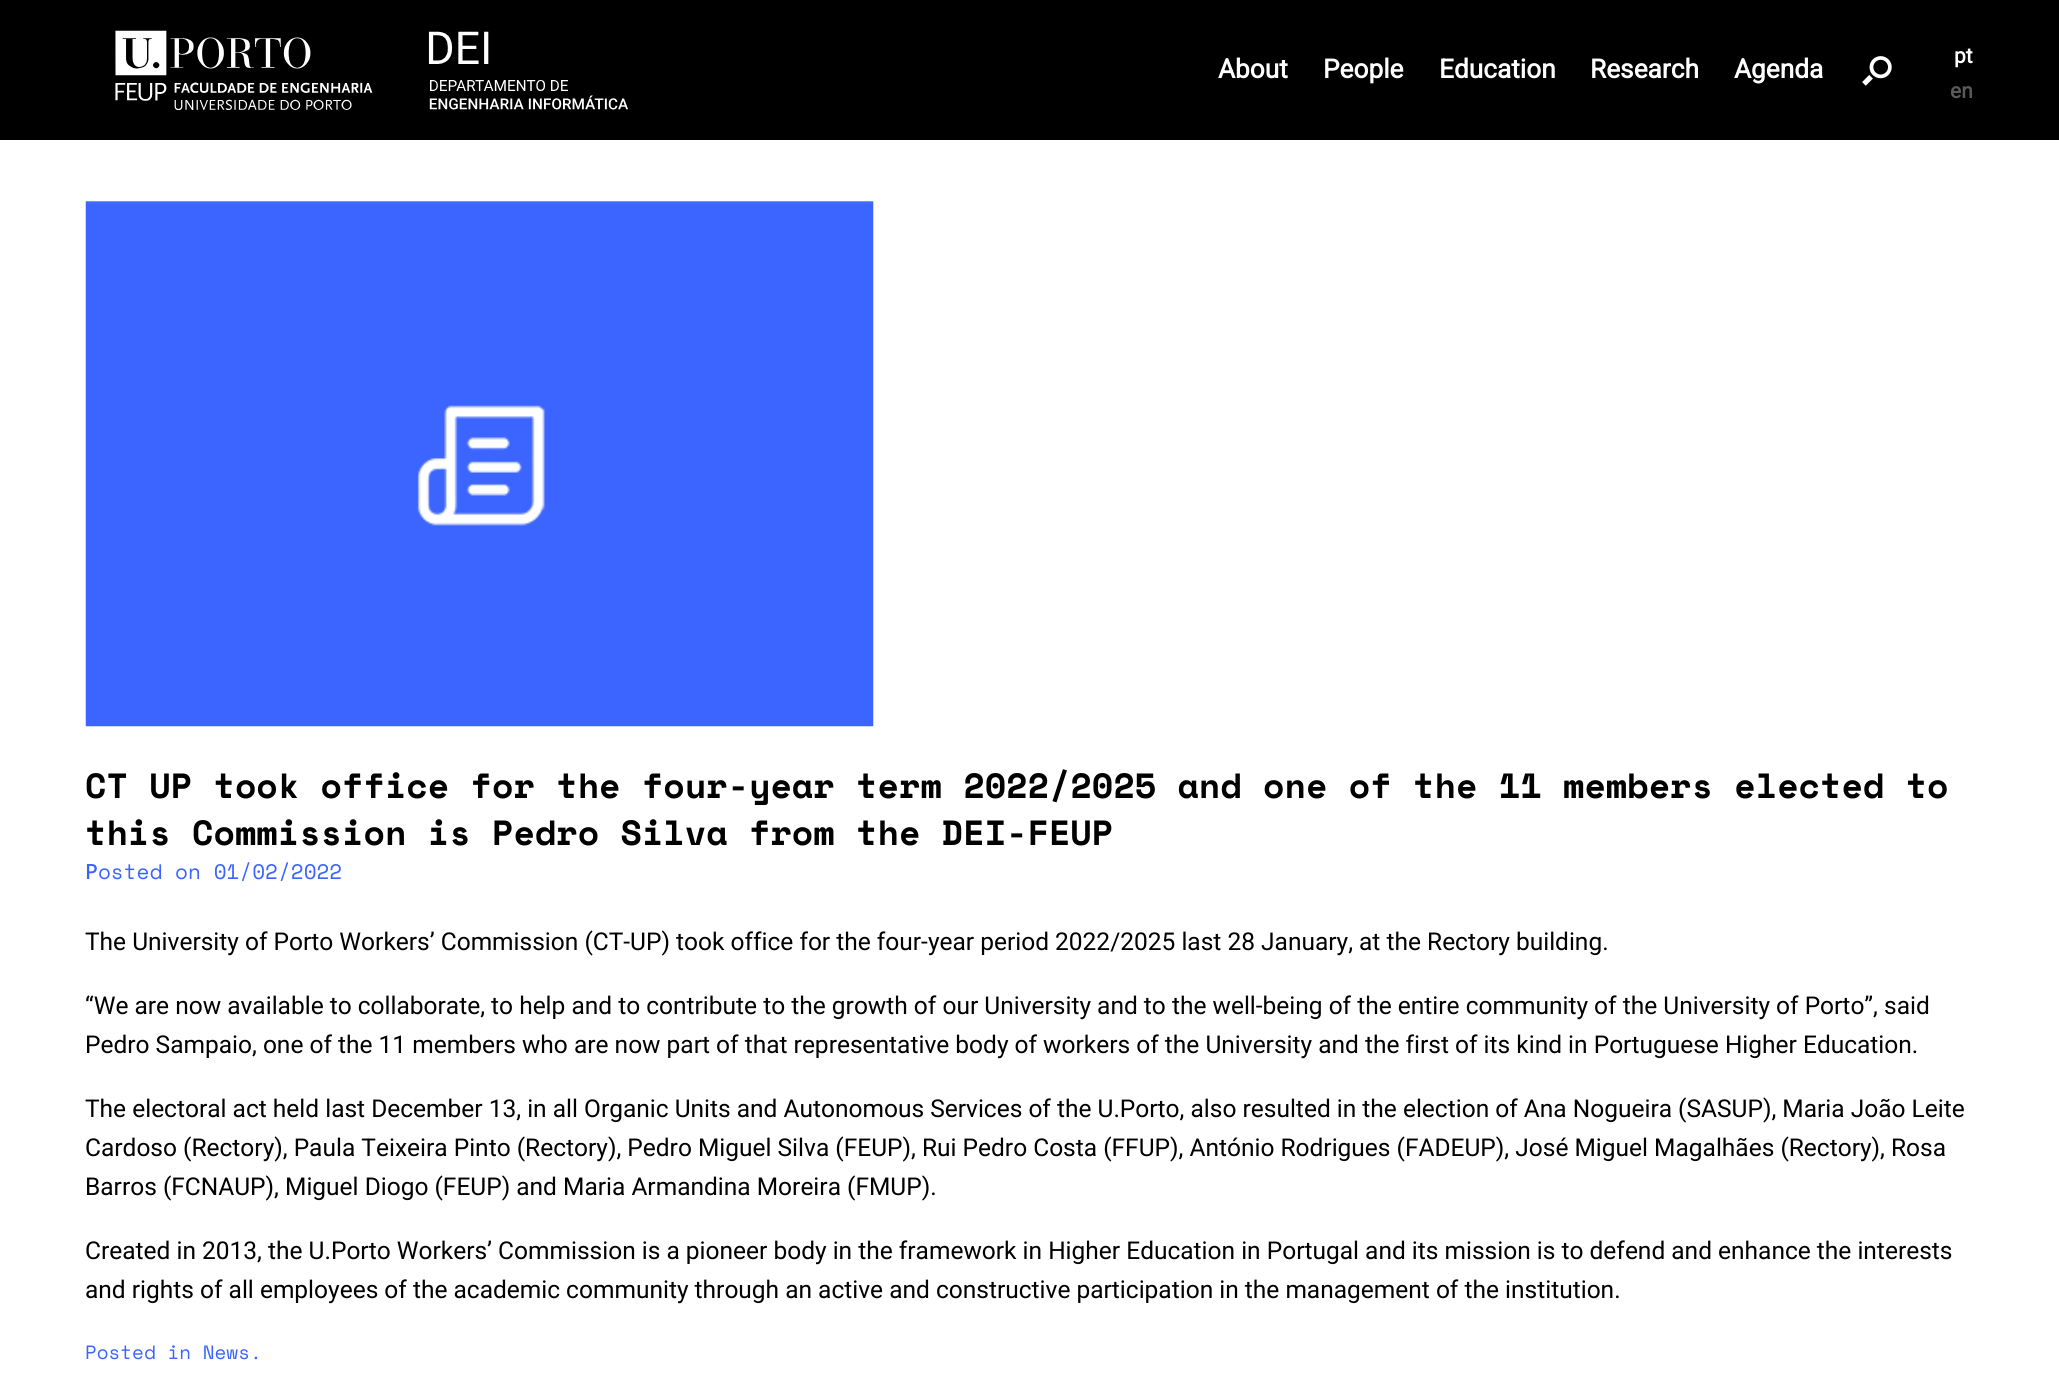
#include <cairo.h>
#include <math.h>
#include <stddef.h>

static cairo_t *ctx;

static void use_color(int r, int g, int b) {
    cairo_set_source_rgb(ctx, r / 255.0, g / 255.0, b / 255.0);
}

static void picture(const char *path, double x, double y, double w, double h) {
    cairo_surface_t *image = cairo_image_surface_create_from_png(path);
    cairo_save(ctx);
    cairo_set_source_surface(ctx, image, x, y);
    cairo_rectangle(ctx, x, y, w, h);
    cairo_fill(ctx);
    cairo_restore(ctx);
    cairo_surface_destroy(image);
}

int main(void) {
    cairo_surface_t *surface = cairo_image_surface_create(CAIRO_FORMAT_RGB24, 2059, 1400);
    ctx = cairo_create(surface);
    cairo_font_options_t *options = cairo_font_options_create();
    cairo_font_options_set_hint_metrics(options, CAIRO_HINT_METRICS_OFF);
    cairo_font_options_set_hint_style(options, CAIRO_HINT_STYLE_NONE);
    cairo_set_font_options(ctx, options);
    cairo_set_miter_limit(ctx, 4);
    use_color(255, 255, 255);
    cairo_paint(ctx);
    use_color(0, 0, 0);
    cairo_rectangle(ctx, 0, 0, 2059, 140);
    cairo_fill(ctx);
    picture("img1.png", 115, 30, 513, 80);
    cairo_select_font_face(ctx, "Roboto", CAIRO_FONT_SLANT_NORMAL, CAIRO_FONT_WEIGHT_BOLD);
    cairo_set_font_size(ctx, 26.25);
    use_color(255, 255, 255);
    cairo_move_to(ctx, 1218, 78);
    cairo_show_text(ctx, "About");
    cairo_move_to(ctx, 1323, 78);
    cairo_show_text(ctx, "People");
    cairo_move_to(ctx, 1439, 78);
    cairo_show_text(ctx, "Education");
    cairo_move_to(ctx, 1590, 78);
    cairo_show_text(ctx, "Research");
    cairo_move_to(ctx, 1734, 78);
    cairo_show_text(ctx, "Agenda");
    cairo_set_font_size(ctx, 21);
    cairo_move_to(ctx, 1954, 63);
    cairo_show_text(ctx, "pt");
    use_color(90, 90, 90);
    cairo_move_to(ctx, 1950, 98);
    cairo_show_text(ctx, "en");
    picture("img2.png", 1862, 56, 30, 30);
    picture("img3.png", 85, 201, 789, 526);
    cairo_select_font_face(ctx, "Space Mono", CAIRO_FONT_SLANT_NORMAL, CAIRO_FONT_WEIGHT_BOLD);
    cairo_set_font_size(ctx, 35);
    use_color(0, 0, 0);
    cairo_move_to(ctx, 85, 798);
    cairo_show_text(ctx, "CT UP took office for the four-year term 2022/2025 and one of the 11 members elected to");
    cairo_move_to(ctx, 85, 845);
    cairo_show_text(ctx, "this Commission is Pedro Silva from the DEI-FEUP");
    cairo_select_font_face(ctx, "Noto Sans Medium", CAIRO_FONT_SLANT_NORMAL, CAIRO_FONT_WEIGHT_NORMAL);
    cairo_set_font_size(ctx, 21);
    use_color(59, 100, 255);
    cairo_move_to(ctx, 85, 879);
    cairo_show_text(ctx, "P");
    cairo_select_font_face(ctx, "Space Mono", CAIRO_FONT_SLANT_NORMAL, CAIRO_FONT_WEIGHT_NORMAL);
    cairo_move_to(ctx, 98, 879);
    cairo_show_text(ctx, "osted on 01/02/2022");
    cairo_select_font_face(ctx, "Roboto", CAIRO_FONT_SLANT_NORMAL, CAIRO_FONT_WEIGHT_NORMAL);
    cairo_set_font_size(ctx, 24.5);
    use_color(0, 0, 0);
    cairo_move_to(ctx, 85, 950);
    cairo_show_text(ctx, "The University of Porto Workers’ Commission (CT-UP) took office for the four-year period 2022/2025 last 28 January, at the Rectory building.");
    cairo_move_to(ctx, 85, 1014);
    cairo_show_text(ctx, "“We are now available to collaborate, to help and to contribute to the growth of our University and to the well-being of the entire community of the University of Porto”, said");
    cairo_move_to(ctx, 85, 1053);
    cairo_show_text(ctx, "Pedro Sampaio, one of the 11 members who are now part of that representative body of workers of the University and the first of its kind in Portuguese Higher Education.");
    cairo_move_to(ctx, 85, 1117);
    cairo_show_text(ctx, "The electoral act held last December 13, in all Organic Units and Autonomous Services of the U.Porto, also resulted in the election of Ana Nogueira (SASUP), Maria João Leite");
    cairo_move_to(ctx, 85, 1156);
    cairo_show_text(ctx, "Cardoso (Rectory), Paula Teixeira Pinto (Rectory), Pedro Miguel Silva (FEUP), Rui Pedro Costa (FFUP), António Rodrigues (FADEUP), José Miguel Magalhães (Rectory), Rosa");
    cairo_move_to(ctx, 85, 1195);
    cairo_show_text(ctx, "Barros (FCNAUP), Miguel Diogo (FEUP) and Maria Armandina Moreira (FMUP).");
    cairo_move_to(ctx, 85, 1259);
    cairo_show_text(ctx, "Created in 2013, the U.Porto Workers’ Commission is a pioneer body in the framework in Higher Education in Portugal and its mission is to defend and enhance the interests");
    cairo_move_to(ctx, 85, 1298);
    cairo_show_text(ctx, "and rights of all employees of the academic community through an active and constructive participation in the management of the institution.");
    cairo_select_font_face(ctx, "Space Mono", CAIRO_FONT_SLANT_NORMAL, CAIRO_FONT_WEIGHT_NORMAL);
    cairo_set_font_size(ctx, 19.25);
    use_color(59, 100, 255);
    cairo_move_to(ctx, 85, 1359);
    cairo_show_text(ctx, "Posted in News.");
    cairo_surface_write_to_png(surface, "result.png");
    cairo_font_options_destroy(options);
    cairo_destroy(ctx);
    cairo_surface_destroy(surface);
    return 0;
}
